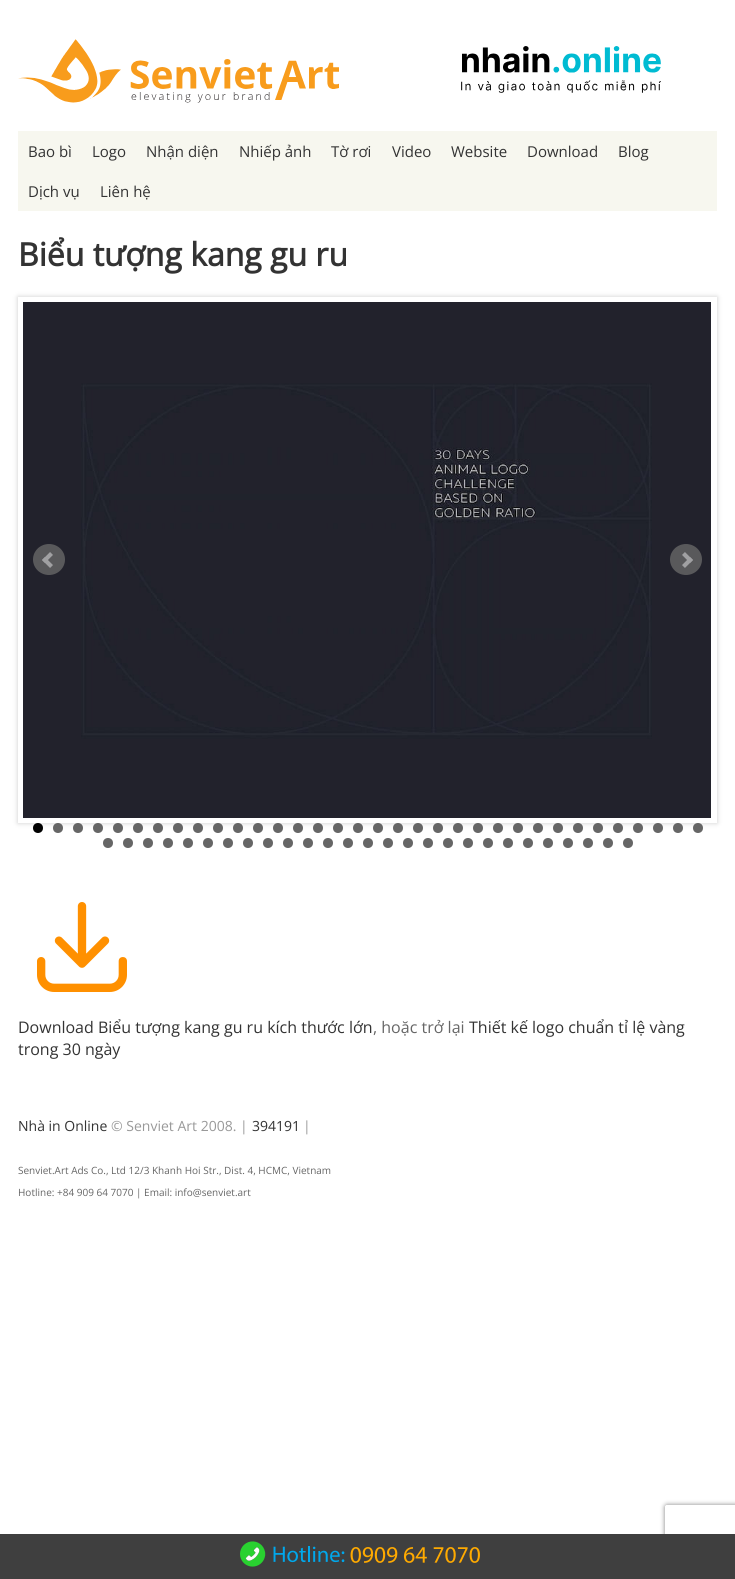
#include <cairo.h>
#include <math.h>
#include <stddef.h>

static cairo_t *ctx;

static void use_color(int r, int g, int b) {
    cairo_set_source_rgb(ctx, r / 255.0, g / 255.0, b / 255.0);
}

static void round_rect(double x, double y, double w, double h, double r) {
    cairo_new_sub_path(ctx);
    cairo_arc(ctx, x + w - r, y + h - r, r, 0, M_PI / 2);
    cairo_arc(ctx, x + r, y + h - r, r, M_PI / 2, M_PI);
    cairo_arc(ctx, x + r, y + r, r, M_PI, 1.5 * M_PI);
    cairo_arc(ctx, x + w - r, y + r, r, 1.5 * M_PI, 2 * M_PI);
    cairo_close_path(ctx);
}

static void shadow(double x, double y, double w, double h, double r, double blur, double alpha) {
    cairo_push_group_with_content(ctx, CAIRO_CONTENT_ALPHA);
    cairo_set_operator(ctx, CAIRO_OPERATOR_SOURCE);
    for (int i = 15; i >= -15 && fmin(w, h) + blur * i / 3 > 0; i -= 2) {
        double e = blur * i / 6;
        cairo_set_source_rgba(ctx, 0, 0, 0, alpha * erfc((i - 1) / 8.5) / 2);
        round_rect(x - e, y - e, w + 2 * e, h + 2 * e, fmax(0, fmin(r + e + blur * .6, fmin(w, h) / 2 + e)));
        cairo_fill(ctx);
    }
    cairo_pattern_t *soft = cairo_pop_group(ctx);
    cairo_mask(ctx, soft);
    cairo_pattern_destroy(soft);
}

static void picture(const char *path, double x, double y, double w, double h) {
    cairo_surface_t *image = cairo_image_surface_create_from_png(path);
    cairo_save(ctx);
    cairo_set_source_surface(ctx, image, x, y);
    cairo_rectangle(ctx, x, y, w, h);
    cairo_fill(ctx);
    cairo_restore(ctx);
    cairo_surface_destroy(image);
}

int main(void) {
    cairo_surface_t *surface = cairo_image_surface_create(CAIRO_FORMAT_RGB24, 735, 1579);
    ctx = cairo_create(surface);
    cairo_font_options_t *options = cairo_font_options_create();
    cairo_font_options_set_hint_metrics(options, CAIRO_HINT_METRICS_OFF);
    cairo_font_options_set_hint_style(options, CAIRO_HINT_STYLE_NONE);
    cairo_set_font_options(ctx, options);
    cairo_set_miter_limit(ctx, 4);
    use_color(255, 255, 255);
    cairo_paint(ctx);
    picture("img1.png", 18, 39, 321, 64);
    picture("img2.png", 461, 46, 200, 47);
    use_color(247, 247, 239);
    cairo_rectangle(ctx, 18, 131, 699, 80);
    cairo_fill(ctx);
    cairo_select_font_face(ctx, "Open Sans", CAIRO_FONT_SLANT_NORMAL, CAIRO_FONT_WEIGHT_NORMAL);
    cairo_set_font_size(ctx, 15);
    use_color(51, 51, 51);
    cairo_move_to(ctx, 28, 157);
    cairo_show_text(ctx, "Bao bì");
    cairo_move_to(ctx, 92, 157);
    cairo_show_text(ctx, "Logo");
    cairo_move_to(ctx, 146, 157);
    cairo_show_text(ctx, "Nhận diện");
    cairo_move_to(ctx, 239, 157);
    cairo_show_text(ctx, "Nhiếp ảnh");
    cairo_move_to(ctx, 331, 157);
    cairo_show_text(ctx, "Tờ rơi");
    cairo_move_to(ctx, 392, 157);
    cairo_show_text(ctx, "Video");
    cairo_move_to(ctx, 451, 157);
    cairo_show_text(ctx, "Website");
    cairo_move_to(ctx, 527, 157);
    cairo_show_text(ctx, "Download");
    cairo_move_to(ctx, 618, 157);
    cairo_show_text(ctx, "Blog");
    cairo_move_to(ctx, 28, 197);
    cairo_show_text(ctx, "Dịch vụ");
    cairo_move_to(ctx, 100, 197);
    cairo_show_text(ctx, "Liên hệ");
    cairo_select_font_face(ctx, "Open Sans", CAIRO_FONT_SLANT_NORMAL, CAIRO_FONT_WEIGHT_BOLD);
    cairo_set_font_size(ctx, 32);
    cairo_move_to(ctx, 18, 266);
    cairo_show_text(ctx, "Biểu tượng kang gu ru");
    cairo_save(ctx);
    cairo_set_fill_rule(ctx, CAIRO_FILL_RULE_EVEN_ODD);
    cairo_new_path(ctx);
    cairo_move_to(ctx, 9, 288);
    cairo_line_to(ctx, 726, 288);
    cairo_line_to(ctx, 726, 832);
    cairo_line_to(ctx, 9, 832);
    cairo_close_path(ctx);
    cairo_move_to(ctx, 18, 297);
    cairo_line_to(ctx, 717, 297);
    cairo_line_to(ctx, 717, 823);
    cairo_line_to(ctx, 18, 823);
    cairo_close_path(ctx);
    cairo_clip(ctx);
    use_color(204, 204, 204);
    shadow(18, 297, 699, 526, 0, 2.5, 1);
    cairo_restore(ctx);
    picture("img3.png", 23, 302, 688, 516);
    picture("img4.png", 33, 544, 32, 31);
    picture("img5.png", 670, 544, 32, 31);
    use_color(0, 0, 0);
    cairo_arc(ctx, 38, 828, 5, 0, 2 * M_PI);
    cairo_fill(ctx);
    use_color(102, 102, 102);
    cairo_arc(ctx, 58, 828, 5, 0, 2 * M_PI);
    cairo_fill(ctx);
    cairo_arc(ctx, 78, 828, 5, 0, 2 * M_PI);
    cairo_fill(ctx);
    cairo_arc(ctx, 98, 828, 5, 0, 2 * M_PI);
    cairo_fill(ctx);
    cairo_arc(ctx, 118, 828, 5, 0, 2 * M_PI);
    cairo_fill(ctx);
    cairo_arc(ctx, 138, 828, 5, 0, 2 * M_PI);
    cairo_fill(ctx);
    cairo_arc(ctx, 158, 828, 5, 0, 2 * M_PI);
    cairo_fill(ctx);
    cairo_arc(ctx, 178, 828, 5, 0, 2 * M_PI);
    cairo_fill(ctx);
    cairo_arc(ctx, 198, 828, 5, 0, 2 * M_PI);
    cairo_fill(ctx);
    cairo_arc(ctx, 218, 828, 5, 0, 2 * M_PI);
    cairo_fill(ctx);
    cairo_arc(ctx, 238, 828, 5, 0, 2 * M_PI);
    cairo_fill(ctx);
    cairo_arc(ctx, 258, 828, 5, 0, 2 * M_PI);
    cairo_fill(ctx);
    cairo_arc(ctx, 278, 828, 5, 0, 2 * M_PI);
    cairo_fill(ctx);
    cairo_arc(ctx, 298, 828, 5, 0, 2 * M_PI);
    cairo_fill(ctx);
    cairo_arc(ctx, 318, 828, 5, 0, 2 * M_PI);
    cairo_fill(ctx);
    cairo_arc(ctx, 338, 828, 5, 0, 2 * M_PI);
    cairo_fill(ctx);
    cairo_arc(ctx, 358, 828, 5, 0, 2 * M_PI);
    cairo_fill(ctx);
    cairo_arc(ctx, 378, 828, 5, 0, 2 * M_PI);
    cairo_fill(ctx);
    cairo_arc(ctx, 398, 828, 5, 0, 2 * M_PI);
    cairo_fill(ctx);
    cairo_arc(ctx, 418, 828, 5, 0, 2 * M_PI);
    cairo_fill(ctx);
    cairo_arc(ctx, 438, 828, 5, 0, 2 * M_PI);
    cairo_fill(ctx);
    cairo_arc(ctx, 458, 828, 5, 0, 2 * M_PI);
    cairo_fill(ctx);
    cairo_arc(ctx, 478, 828, 5, 0, 2 * M_PI);
    cairo_fill(ctx);
    cairo_arc(ctx, 498, 828, 5, 0, 2 * M_PI);
    cairo_fill(ctx);
    cairo_arc(ctx, 518, 828, 5, 0, 2 * M_PI);
    cairo_fill(ctx);
    cairo_arc(ctx, 538, 828, 5, 0, 2 * M_PI);
    cairo_fill(ctx);
    cairo_arc(ctx, 558, 828, 5, 0, 2 * M_PI);
    cairo_fill(ctx);
    cairo_arc(ctx, 578, 828, 5, 0, 2 * M_PI);
    cairo_fill(ctx);
    cairo_arc(ctx, 598, 828, 5, 0, 2 * M_PI);
    cairo_fill(ctx);
    cairo_arc(ctx, 618, 828, 5, 0, 2 * M_PI);
    cairo_fill(ctx);
    cairo_arc(ctx, 638, 828, 5, 0, 2 * M_PI);
    cairo_fill(ctx);
    cairo_arc(ctx, 658, 828, 5, 0, 2 * M_PI);
    cairo_fill(ctx);
    cairo_arc(ctx, 678, 828, 5, 0, 2 * M_PI);
    cairo_fill(ctx);
    cairo_arc(ctx, 698, 828, 5, 0, 2 * M_PI);
    cairo_fill(ctx);
    cairo_arc(ctx, 108, 843, 5, 0, 2 * M_PI);
    cairo_fill(ctx);
    cairo_arc(ctx, 128, 843, 5, 0, 2 * M_PI);
    cairo_fill(ctx);
    cairo_arc(ctx, 148, 843, 5, 0, 2 * M_PI);
    cairo_fill(ctx);
    cairo_arc(ctx, 168, 843, 5, 0, 2 * M_PI);
    cairo_fill(ctx);
    cairo_arc(ctx, 188, 843, 5, 0, 2 * M_PI);
    cairo_fill(ctx);
    cairo_arc(ctx, 208, 843, 5, 0, 2 * M_PI);
    cairo_fill(ctx);
    cairo_arc(ctx, 228, 843, 5, 0, 2 * M_PI);
    cairo_fill(ctx);
    cairo_arc(ctx, 248, 843, 5, 0, 2 * M_PI);
    cairo_fill(ctx);
    cairo_arc(ctx, 268, 843, 5, 0, 2 * M_PI);
    cairo_fill(ctx);
    cairo_arc(ctx, 288, 843, 5, 0, 2 * M_PI);
    cairo_fill(ctx);
    cairo_arc(ctx, 308, 843, 5, 0, 2 * M_PI);
    cairo_fill(ctx);
    cairo_arc(ctx, 328, 843, 5, 0, 2 * M_PI);
    cairo_fill(ctx);
    cairo_arc(ctx, 348, 843, 5, 0, 2 * M_PI);
    cairo_fill(ctx);
    cairo_arc(ctx, 368, 843, 5, 0, 2 * M_PI);
    cairo_fill(ctx);
    cairo_arc(ctx, 388, 843, 5, 0, 2 * M_PI);
    cairo_fill(ctx);
    cairo_arc(ctx, 408, 843, 5, 0, 2 * M_PI);
    cairo_fill(ctx);
    cairo_arc(ctx, 428, 843, 5, 0, 2 * M_PI);
    cairo_fill(ctx);
    cairo_arc(ctx, 448, 843, 5, 0, 2 * M_PI);
    cairo_fill(ctx);
    cairo_arc(ctx, 468, 843, 5, 0, 2 * M_PI);
    cairo_fill(ctx);
    cairo_arc(ctx, 488, 843, 5, 0, 2 * M_PI);
    cairo_fill(ctx);
    cairo_arc(ctx, 508, 843, 5, 0, 2 * M_PI);
    cairo_fill(ctx);
    cairo_arc(ctx, 528, 843, 5, 0, 2 * M_PI);
    cairo_fill(ctx);
    cairo_arc(ctx, 548, 843, 5, 0, 2 * M_PI);
    cairo_fill(ctx);
    cairo_arc(ctx, 568, 843, 5, 0, 2 * M_PI);
    cairo_fill(ctx);
    cairo_arc(ctx, 588, 843, 5, 0, 2 * M_PI);
    cairo_fill(ctx);
    cairo_arc(ctx, 608, 843, 5, 0, 2 * M_PI);
    cairo_fill(ctx);
    cairo_arc(ctx, 628, 843, 5, 0, 2 * M_PI);
    cairo_fill(ctx);
    picture("img6.png", 37, 902, 90, 90);
    cairo_select_font_face(ctx, "Open Sans", CAIRO_FONT_SLANT_NORMAL, CAIRO_FONT_WEIGHT_NORMAL);
    cairo_set_font_size(ctx, 16);
    use_color(51, 51, 51);
    cairo_move_to(ctx, 18, 1033);
    cairo_show_text(ctx, "Download Biểu tượng kang gu ru kích thước lớn");
    use_color(102, 102, 102);
    cairo_move_to(ctx, 373, 1033);
    cairo_show_text(ctx, ", hoặc trở lại");
    use_color(51, 51, 51);
    cairo_move_to(ctx, 469, 1033);
    cairo_show_text(ctx, "Thiết kế logo chuẩn tỉ lệ vàng");
    cairo_move_to(ctx, 18, 1055);
    cairo_show_text(ctx, "trong 30 ngày");
    cairo_set_font_size(ctx, 14);
    cairo_move_to(ctx, 18, 1131);
    cairo_show_text(ctx, "Nhà in Online");
    use_color(153, 153, 153);
    cairo_move_to(ctx, 111, 1131);
    cairo_show_text(ctx, "© Senviet Art 2008. |");
    use_color(51, 51, 51);
    cairo_move_to(ctx, 252, 1131);
    cairo_show_text(ctx, "394191");
    use_color(153, 153, 153);
    cairo_move_to(ctx, 303, 1131);
    cairo_show_text(ctx, "|");
    cairo_set_font_size(ctx, 10);
    use_color(102, 102, 102);
    cairo_move_to(ctx, 18, 1174);
    cairo_show_text(ctx, "Senviet.Art Ads Co., Ltd 12/3 Khanh Hoi Str., Dist. 4, HCMC, Vietnam");
    cairo_move_to(ctx, 18, 1196);
    cairo_show_text(ctx, "Hotline: +84 909 64 7070 | Email: info@senviet.art");
    cairo_save(ctx);
    cairo_set_fill_rule(ctx, CAIRO_FILL_RULE_EVEN_ODD);
    cairo_new_path(ctx);
    cairo_move_to(ctx, 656, 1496);
    cairo_line_to(ctx, 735, 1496);
    cairo_line_to(ctx, 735, 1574);
    cairo_line_to(ctx, 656, 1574);
    cairo_close_path(ctx);
    cairo_move_to(ctx, 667, 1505);
    cairo_line_to(ctx, 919, 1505);
    cairo_curve_to(ctx, 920, 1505, 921, 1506, 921, 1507);
    cairo_line_to(ctx, 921, 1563);
    cairo_curve_to(ctx, 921, 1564, 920, 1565, 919, 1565);
    cairo_line_to(ctx, 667, 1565);
    cairo_curve_to(ctx, 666, 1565, 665, 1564, 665, 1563);
    cairo_line_to(ctx, 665, 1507);
    cairo_curve_to(ctx, 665, 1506, 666, 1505, 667, 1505);
    cairo_close_path(ctx);
    cairo_clip(ctx);
    use_color(128, 128, 128);
    shadow(665, 1505, 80, 60, 2, 2.5, 1);
    cairo_restore(ctx);
    use_color(63, 63, 63);
    cairo_rectangle(ctx, 0, 1534, 735, 45);
    cairo_fill(ctx);
    picture("img7.png", 240, 1541, 240, 26);
    cairo_surface_write_to_png(surface, "result.png");
    cairo_font_options_destroy(options);
    cairo_destroy(ctx);
    cairo_surface_destroy(surface);
    return 0;
}
